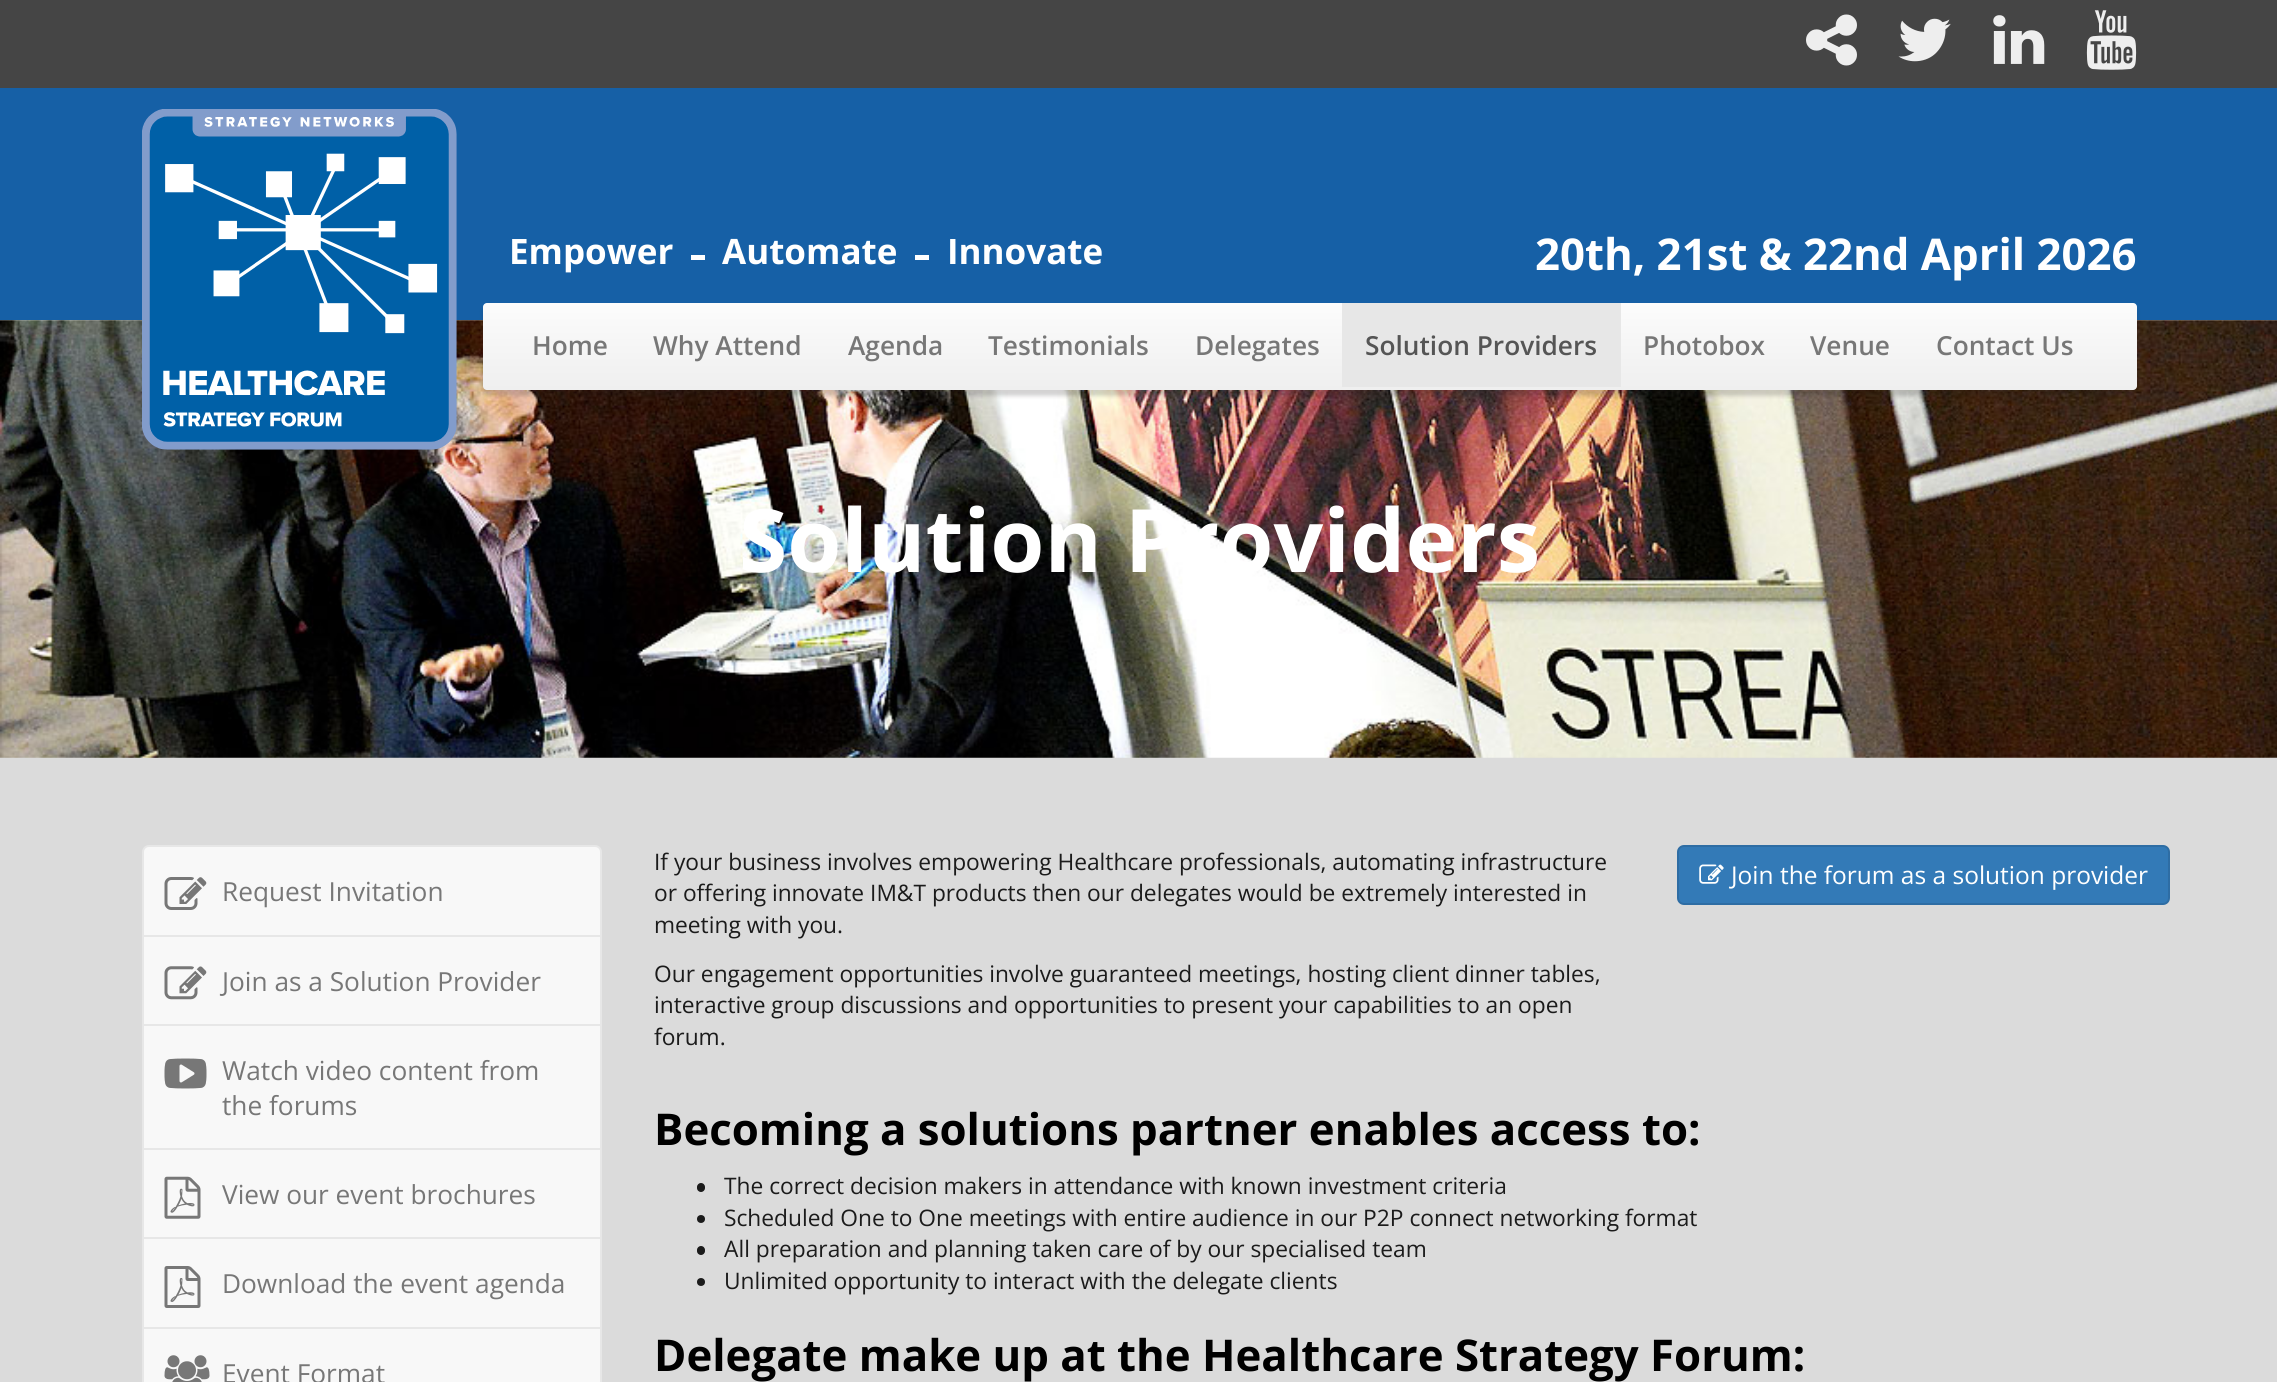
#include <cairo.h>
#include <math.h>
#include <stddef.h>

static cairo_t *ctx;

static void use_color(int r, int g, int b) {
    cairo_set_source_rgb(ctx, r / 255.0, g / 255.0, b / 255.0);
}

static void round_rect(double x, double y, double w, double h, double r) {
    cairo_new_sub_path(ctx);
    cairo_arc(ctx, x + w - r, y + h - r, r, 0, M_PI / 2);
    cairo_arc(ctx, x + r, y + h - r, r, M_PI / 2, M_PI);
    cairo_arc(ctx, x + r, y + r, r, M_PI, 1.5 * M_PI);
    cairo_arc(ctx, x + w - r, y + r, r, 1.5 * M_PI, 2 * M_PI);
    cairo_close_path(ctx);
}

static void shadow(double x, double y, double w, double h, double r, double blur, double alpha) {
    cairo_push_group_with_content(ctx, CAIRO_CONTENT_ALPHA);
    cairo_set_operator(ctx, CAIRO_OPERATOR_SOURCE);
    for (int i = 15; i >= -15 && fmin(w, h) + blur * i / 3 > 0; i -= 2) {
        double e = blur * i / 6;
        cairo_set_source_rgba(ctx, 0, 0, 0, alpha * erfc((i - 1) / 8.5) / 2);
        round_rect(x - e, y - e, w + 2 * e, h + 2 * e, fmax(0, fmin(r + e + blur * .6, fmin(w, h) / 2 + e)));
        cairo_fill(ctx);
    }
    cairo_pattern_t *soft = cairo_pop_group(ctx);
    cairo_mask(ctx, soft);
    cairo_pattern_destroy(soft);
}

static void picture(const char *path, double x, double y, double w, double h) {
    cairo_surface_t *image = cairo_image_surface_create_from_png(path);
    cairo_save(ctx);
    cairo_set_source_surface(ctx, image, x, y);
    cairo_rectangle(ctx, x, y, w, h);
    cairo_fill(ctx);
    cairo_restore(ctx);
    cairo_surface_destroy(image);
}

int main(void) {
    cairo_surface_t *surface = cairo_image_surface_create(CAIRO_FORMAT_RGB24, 2277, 1382);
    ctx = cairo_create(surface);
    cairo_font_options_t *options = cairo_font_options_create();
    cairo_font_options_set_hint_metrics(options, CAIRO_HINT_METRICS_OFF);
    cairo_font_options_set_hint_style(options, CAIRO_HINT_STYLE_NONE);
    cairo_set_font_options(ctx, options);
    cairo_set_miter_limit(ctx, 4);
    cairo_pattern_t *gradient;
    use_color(219, 219, 219);
    cairo_paint(ctx);
    use_color(69, 69, 69);
    cairo_rectangle(ctx, 0, 0, 2277, 88);
    cairo_fill(ctx);
    picture("img1.png", 1806, 14, 51, 52);
    picture("img2.png", 1898, 18, 53, 44);
    picture("img3.png", 1993, 15, 52, 49);
    picture("img4.png", 2086, 10, 51, 60);
    use_color(22, 96, 166);
    cairo_rectangle(ctx, 0, 88, 2277, 232);
    cairo_fill(ctx);
    picture("img6.png", 0, 320, 2277, 438);
    picture("img5.png", 142, 109, 315, 341);
    cairo_select_font_face(ctx, "Open Sans", CAIRO_FONT_SLANT_NORMAL, CAIRO_FONT_WEIGHT_BOLD);
    cairo_set_font_size(ctx, 35);
    use_color(255, 255, 255);
    cairo_move_to(ctx, 509, 264);
    cairo_show_text(ctx, "Empower");
    cairo_rectangle(ctx, 691, 255, 14, 5);
    cairo_fill(ctx);
    cairo_move_to(ctx, 722, 264);
    cairo_show_text(ctx, "Automate");
    cairo_rectangle(ctx, 915, 255, 14, 5);
    cairo_fill(ctx);
    cairo_move_to(ctx, 947, 264);
    cairo_show_text(ctx, "Innovate");
    cairo_set_font_size(ctx, 43.75);
    cairo_move_to(ctx, 1535, 270);
    cairo_show_text(ctx, "20th, 21st & 22nd April 2026");
    use_color(35, 31, 32);
    shadow(483, 308, 1654, 88, 4, 2, 0.2);
    gradient = cairo_pattern_create_linear(1310, 303, 1310, 390);
    cairo_pattern_add_color_stop_rgba(gradient, 0, 0.988, 0.988, 0.988, 1);
    cairo_pattern_add_color_stop_rgba(gradient, 1, 0.937, 0.937, 0.937, 1);
    cairo_set_source(ctx, gradient);
    cairo_pattern_destroy(gradient);
    round_rect(483, 303, 1654, 87, 4);
    cairo_fill(ctx);
    cairo_select_font_face(ctx, "Open Sans SemiBold", CAIRO_FONT_SLANT_NORMAL, CAIRO_FONT_WEIGHT_NORMAL);
    cairo_set_font_size(ctx, 26.25);
    use_color(119, 119, 119);
    cairo_move_to(ctx, 532, 355);
    cairo_show_text(ctx, "Home");
    cairo_move_to(ctx, 653, 355);
    cairo_show_text(ctx, "Why Attend");
    cairo_move_to(ctx, 848, 355);
    cairo_show_text(ctx, "Agenda");
    cairo_move_to(ctx, 988, 355);
    cairo_show_text(ctx, "Testimonials");
    cairo_move_to(ctx, 1195, 355);
    cairo_show_text(ctx, "Delegates");
    use_color(231, 231, 231);
    cairo_rectangle(ctx, 1342, 303, 279, 84);
    cairo_fill(ctx);
    use_color(85, 85, 85);
    cairo_move_to(ctx, 1365, 355);
    cairo_show_text(ctx, "Solution Providers");
    use_color(119, 119, 119);
    cairo_move_to(ctx, 1643, 355);
    cairo_show_text(ctx, "Photobox");
    cairo_move_to(ctx, 1810, 355);
    cairo_show_text(ctx, "Venue");
    cairo_move_to(ctx, 1936, 355);
    cairo_show_text(ctx, "Contact Us");
    cairo_select_font_face(ctx, "Open Sans", CAIRO_FONT_SLANT_NORMAL, CAIRO_FONT_WEIGHT_BOLD);
    cairo_set_font_size(ctx, 87.5);
    use_color(255, 255, 255);
    cairo_move_to(ctx, 739, 572);
    cairo_show_text(ctx, "Solution Providers");
    use_color(248, 248, 248);
    round_rect(143, 846, 458, 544, 6);
    cairo_fill_preserve(ctx);
    use_color(231, 231, 231);
    cairo_stroke(ctx);
    cairo_rectangle(ctx, 144, 935, 456, 2);
    cairo_fill(ctx);
    picture("img7.png", 164, 877, 43, 33);
    cairo_select_font_face(ctx, "Open Sans", CAIRO_FONT_SLANT_NORMAL, CAIRO_FONT_WEIGHT_NORMAL);
    cairo_set_font_size(ctx, 26.25);
    use_color(119, 119, 119);
    cairo_move_to(ctx, 222, 901);
    cairo_show_text(ctx, "Request Invitation");
    use_color(231, 231, 231);
    cairo_rectangle(ctx, 144, 1024, 456, 2);
    cairo_fill(ctx);
    picture("img8.png", 164, 966, 43, 34);
    use_color(119, 119, 119);
    cairo_move_to(ctx, 222, 991);
    cairo_show_text(ctx, "Join as a Solution Provider");
    use_color(231, 231, 231);
    cairo_rectangle(ctx, 144, 1148, 456, 2);
    cairo_fill(ctx);
    picture("img9.png", 164, 1058, 43, 31);
    use_color(119, 119, 119);
    cairo_move_to(ctx, 222, 1080);
    cairo_show_text(ctx, "Watch video content from");
    cairo_move_to(ctx, 222, 1115);
    cairo_show_text(ctx, "the forums");
    use_color(231, 231, 231);
    cairo_rectangle(ctx, 144, 1237, 456, 2);
    cairo_fill(ctx);
    picture("img10.png", 164, 1176, 37, 43);
    use_color(119, 119, 119);
    cairo_move_to(ctx, 222, 1204);
    cairo_show_text(ctx, "View our event brochures");
    use_color(231, 231, 231);
    cairo_rectangle(ctx, 144, 1327, 456, 2);
    cairo_fill(ctx);
    picture("img11.png", 164, 1266, 37, 42);
    use_color(119, 119, 119);
    cairo_move_to(ctx, 222, 1293);
    cairo_show_text(ctx, "Download the event agenda");
    picture("img12.png", 164, 1355, 46, 27);
    cairo_move_to(ctx, 222, 1383);
    cairo_show_text(ctx, "Event Format");
    cairo_set_font_size(ctx, 22.75);
    use_color(27, 27, 27);
    cairo_move_to(ctx, 654, 870);
    cairo_show_text(ctx, "If your business involves empowering Healthcare professionals, automating infrastructure");
    cairo_move_to(ctx, 654, 901);
    cairo_show_text(ctx, "or offering innovate IM&T products then our delegates would be extremely interested in");
    cairo_move_to(ctx, 654, 933);
    cairo_show_text(ctx, "meeting with you.");
    cairo_move_to(ctx, 654, 982);
    cairo_show_text(ctx, "Our engagement opportunities involve guaranteed meetings, hosting client dinner tables,");
    cairo_move_to(ctx, 654, 1013);
    cairo_show_text(ctx, "interactive group discussions and opportunities to present your capabilities to an open");
    cairo_move_to(ctx, 654, 1045);
    cairo_show_text(ctx, "forum.");
    use_color(51, 122, 183);
    round_rect(1678, 846, 491, 58, 6);
    cairo_fill_preserve(ctx);
    use_color(46, 109, 164);
    cairo_stroke(ctx);
    picture("img13.png", 1699, 864, 25, 20);
    cairo_set_font_size(ctx, 24.5);
    use_color(255, 255, 255);
    cairo_move_to(ctx, 1731, 884);
    cairo_show_text(ctx, "Join the forum as a solution provider");
    cairo_select_font_face(ctx, "Open Sans", CAIRO_FONT_SLANT_NORMAL, CAIRO_FONT_WEIGHT_BOLD);
    cairo_set_font_size(ctx, 43.75);
    use_color(0, 0, 0);
    cairo_move_to(ctx, 654, 1145);
    cairo_show_text(ctx, "Becoming a solutions partner enables access to:");
    use_color(27, 27, 27);
    round_rect(697, 1183, 8, 9, 4);
    cairo_fill(ctx);
    cairo_select_font_face(ctx, "Open Sans", CAIRO_FONT_SLANT_NORMAL, CAIRO_FONT_WEIGHT_NORMAL);
    cairo_set_font_size(ctx, 22.75);
    cairo_move_to(ctx, 724, 1194);
    cairo_show_text(ctx, "The correct decision makers in attendance with known investment criteria");
    cairo_new_path(ctx);
    cairo_arc(ctx, 701, 1219, 4, 0, 2 * M_PI);
    cairo_fill(ctx);
    cairo_move_to(ctx, 724, 1226);
    cairo_show_text(ctx, "Scheduled One to One meetings with entire audience in our P2P connect networking format");
    round_rect(697, 1246, 8, 9, 4);
    cairo_fill(ctx);
    cairo_move_to(ctx, 724, 1257);
    cairo_show_text(ctx, "All preparation and planning taken care of by our specialised team");
    cairo_new_path(ctx);
    cairo_arc(ctx, 701, 1282, 4, 0, 2 * M_PI);
    cairo_fill(ctx);
    cairo_move_to(ctx, 724, 1289);
    cairo_show_text(ctx, "Unlimited opportunity to interact with the delegate clients");
    cairo_select_font_face(ctx, "Open Sans", CAIRO_FONT_SLANT_NORMAL, CAIRO_FONT_WEIGHT_BOLD);
    cairo_set_font_size(ctx, 43.75);
    use_color(0, 0, 0);
    cairo_move_to(ctx, 654, 1371);
    cairo_show_text(ctx, "Delegate make up at the Healthcare Strategy Forum:");
    cairo_surface_write_to_png(surface, "result.png");
    cairo_font_options_destroy(options);
    cairo_destroy(ctx);
    cairo_surface_destroy(surface);
    return 0;
}
